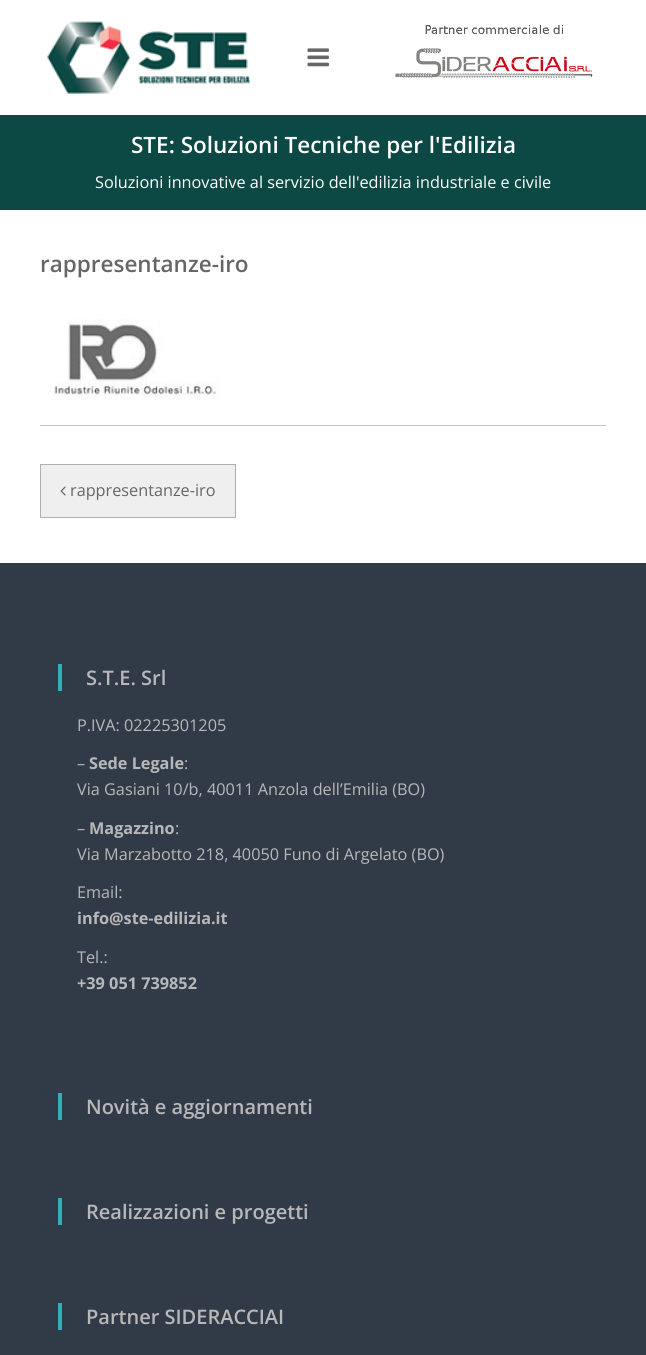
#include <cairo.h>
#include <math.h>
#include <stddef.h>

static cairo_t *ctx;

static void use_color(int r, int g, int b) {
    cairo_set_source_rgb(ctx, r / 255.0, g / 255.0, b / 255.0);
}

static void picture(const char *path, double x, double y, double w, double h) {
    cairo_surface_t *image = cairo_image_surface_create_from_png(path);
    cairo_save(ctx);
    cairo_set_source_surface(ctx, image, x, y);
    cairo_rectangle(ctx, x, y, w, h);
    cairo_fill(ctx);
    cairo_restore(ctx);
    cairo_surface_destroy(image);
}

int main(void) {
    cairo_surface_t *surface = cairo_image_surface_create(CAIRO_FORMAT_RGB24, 646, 1355);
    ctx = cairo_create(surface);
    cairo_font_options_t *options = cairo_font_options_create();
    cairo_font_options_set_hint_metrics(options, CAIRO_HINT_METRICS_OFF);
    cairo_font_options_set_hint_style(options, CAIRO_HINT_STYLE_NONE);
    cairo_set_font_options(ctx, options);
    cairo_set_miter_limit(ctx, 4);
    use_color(255, 255, 255);
    cairo_paint(ctx);
    picture("img1.png", 47, 21, 204, 73);
    picture("img2.png", 307, 48, 22, 19);
    picture("img3.png", 395, 25, 198, 53);
    use_color(12, 73, 68);
    cairo_rectangle(ctx, 0, 115, 646, 95);
    cairo_fill(ctx);
    cairo_select_font_face(ctx, "Open Sans SemiBold", CAIRO_FONT_SLANT_NORMAL, CAIRO_FONT_WEIGHT_NORMAL);
    cairo_set_font_size(ctx, 22.5);
    use_color(255, 255, 255);
    cairo_move_to(ctx, 131, 153);
    cairo_show_text(ctx, "STE: Soluzioni Tecniche per l'Edilizia");
    cairo_select_font_face(ctx, "Open Sans", CAIRO_FONT_SLANT_NORMAL, CAIRO_FONT_WEIGHT_NORMAL);
    cairo_set_font_size(ctx, 16.25);
    cairo_move_to(ctx, 95, 188);
    cairo_show_text(ctx, "Soluzioni innovative al servizio dell'edilizia industriale e civile");
    cairo_select_font_face(ctx, "Open Sans SemiBold", CAIRO_FONT_SLANT_NORMAL, CAIRO_FONT_WEIGHT_NORMAL);
    cairo_set_font_size(ctx, 22.5);
    use_color(102, 102, 102);
    cairo_move_to(ctx, 40, 272);
    cairo_show_text(ctx, "rappresentanze-iro");
    use_color(197, 197, 197);
    cairo_rectangle(ctx, 40, 425, 566, 1);
    cairo_fill(ctx);
    picture("img4.png", 54, 319, 166, 81);
    use_color(239, 239, 239);
    cairo_rectangle(ctx, 40.5, 464.5, 195, 53);
    cairo_fill_preserve(ctx);
    use_color(175, 175, 175);
    cairo_set_line_width(ctx, 1);
    cairo_stroke(ctx);
    picture("img5.png", 60, 486, 6, 10);
    cairo_select_font_face(ctx, "Open Sans", CAIRO_FONT_SLANT_NORMAL, CAIRO_FONT_WEIGHT_NORMAL);
    cairo_set_font_size(ctx, 16.25);
    use_color(102, 102, 102);
    cairo_move_to(ctx, 70, 496);
    cairo_show_text(ctx, "rappresentanze-iro");
    use_color(49, 59, 72);
    cairo_rectangle(ctx, 0, 563, 646, 792);
    cairo_fill(ctx);
    cairo_select_font_face(ctx, "Open Sans SemiBold", CAIRO_FONT_SLANT_NORMAL, CAIRO_FONT_WEIGHT_NORMAL);
    cairo_set_font_size(ctx, 20);
    use_color(184, 184, 184);
    cairo_move_to(ctx, 86, 685);
    cairo_show_text(ctx, "S.T.E. Srl");
    use_color(48, 175, 184);
    cairo_rectangle(ctx, 58, 664, 4, 27);
    cairo_fill(ctx);
    cairo_select_font_face(ctx, "Open Sans", CAIRO_FONT_SLANT_NORMAL, CAIRO_FONT_WEIGHT_NORMAL);
    cairo_set_font_size(ctx, 16.25);
    use_color(184, 184, 184);
    cairo_move_to(ctx, 77, 731);
    cairo_show_text(ctx, "P.IVA: 02225301205");
    cairo_move_to(ctx, 77, 769);
    cairo_show_text(ctx, "–");
    cairo_select_font_face(ctx, "Open Sans", CAIRO_FONT_SLANT_NORMAL, CAIRO_FONT_WEIGHT_BOLD);
    cairo_move_to(ctx, 89, 769);
    cairo_show_text(ctx, "Sede Legale");
    cairo_select_font_face(ctx, "Open Sans", CAIRO_FONT_SLANT_NORMAL, CAIRO_FONT_WEIGHT_NORMAL);
    cairo_move_to(ctx, 184, 769);
    cairo_show_text(ctx, ":");
    cairo_move_to(ctx, 77, 795);
    cairo_show_text(ctx, "Via Gasiani 10/b, 40011 Anzola dell’Emilia (BO)");
    cairo_move_to(ctx, 77, 834);
    cairo_show_text(ctx, "–");
    cairo_select_font_face(ctx, "Open Sans", CAIRO_FONT_SLANT_NORMAL, CAIRO_FONT_WEIGHT_BOLD);
    cairo_move_to(ctx, 89, 834);
    cairo_show_text(ctx, "Magazzino");
    cairo_select_font_face(ctx, "Open Sans", CAIRO_FONT_SLANT_NORMAL, CAIRO_FONT_WEIGHT_NORMAL);
    cairo_move_to(ctx, 175, 834);
    cairo_show_text(ctx, ":");
    cairo_move_to(ctx, 77, 860);
    cairo_show_text(ctx, "Via Marzabotto 218, 40050 Funo di Argelato (BO)");
    cairo_move_to(ctx, 77, 898);
    cairo_show_text(ctx, "Email:");
    cairo_select_font_face(ctx, "Open Sans", CAIRO_FONT_SLANT_NORMAL, CAIRO_FONT_WEIGHT_BOLD);
    cairo_move_to(ctx, 77, 924);
    cairo_show_text(ctx, "info@ste-edilizia.it");
    cairo_select_font_face(ctx, "Open Sans", CAIRO_FONT_SLANT_NORMAL, CAIRO_FONT_WEIGHT_NORMAL);
    cairo_move_to(ctx, 77, 963);
    cairo_show_text(ctx, "Tel.:");
    cairo_select_font_face(ctx, "Open Sans", CAIRO_FONT_SLANT_NORMAL, CAIRO_FONT_WEIGHT_BOLD);
    cairo_move_to(ctx, 77, 989);
    cairo_show_text(ctx, "+39 051 739852");
    cairo_select_font_face(ctx, "Open Sans SemiBold", CAIRO_FONT_SLANT_NORMAL, CAIRO_FONT_WEIGHT_NORMAL);
    cairo_set_font_size(ctx, 20);
    cairo_move_to(ctx, 86, 1114);
    cairo_show_text(ctx, "Novità e aggiornamenti");
    use_color(48, 175, 184);
    cairo_rectangle(ctx, 58, 1093, 4, 27);
    cairo_fill(ctx);
    use_color(184, 184, 184);
    cairo_move_to(ctx, 86, 1219);
    cairo_show_text(ctx, "Realizzazioni e progetti");
    use_color(48, 175, 184);
    cairo_rectangle(ctx, 58, 1198, 4, 27);
    cairo_fill(ctx);
    use_color(184, 184, 184);
    cairo_move_to(ctx, 86, 1324);
    cairo_show_text(ctx, "Partner SIDERACCIAI");
    use_color(48, 175, 184);
    cairo_rectangle(ctx, 58, 1303, 4, 27);
    cairo_fill(ctx);
    cairo_surface_write_to_png(surface, "result.png");
    cairo_font_options_destroy(options);
    cairo_destroy(ctx);
    cairo_surface_destroy(surface);
    return 0;
}
